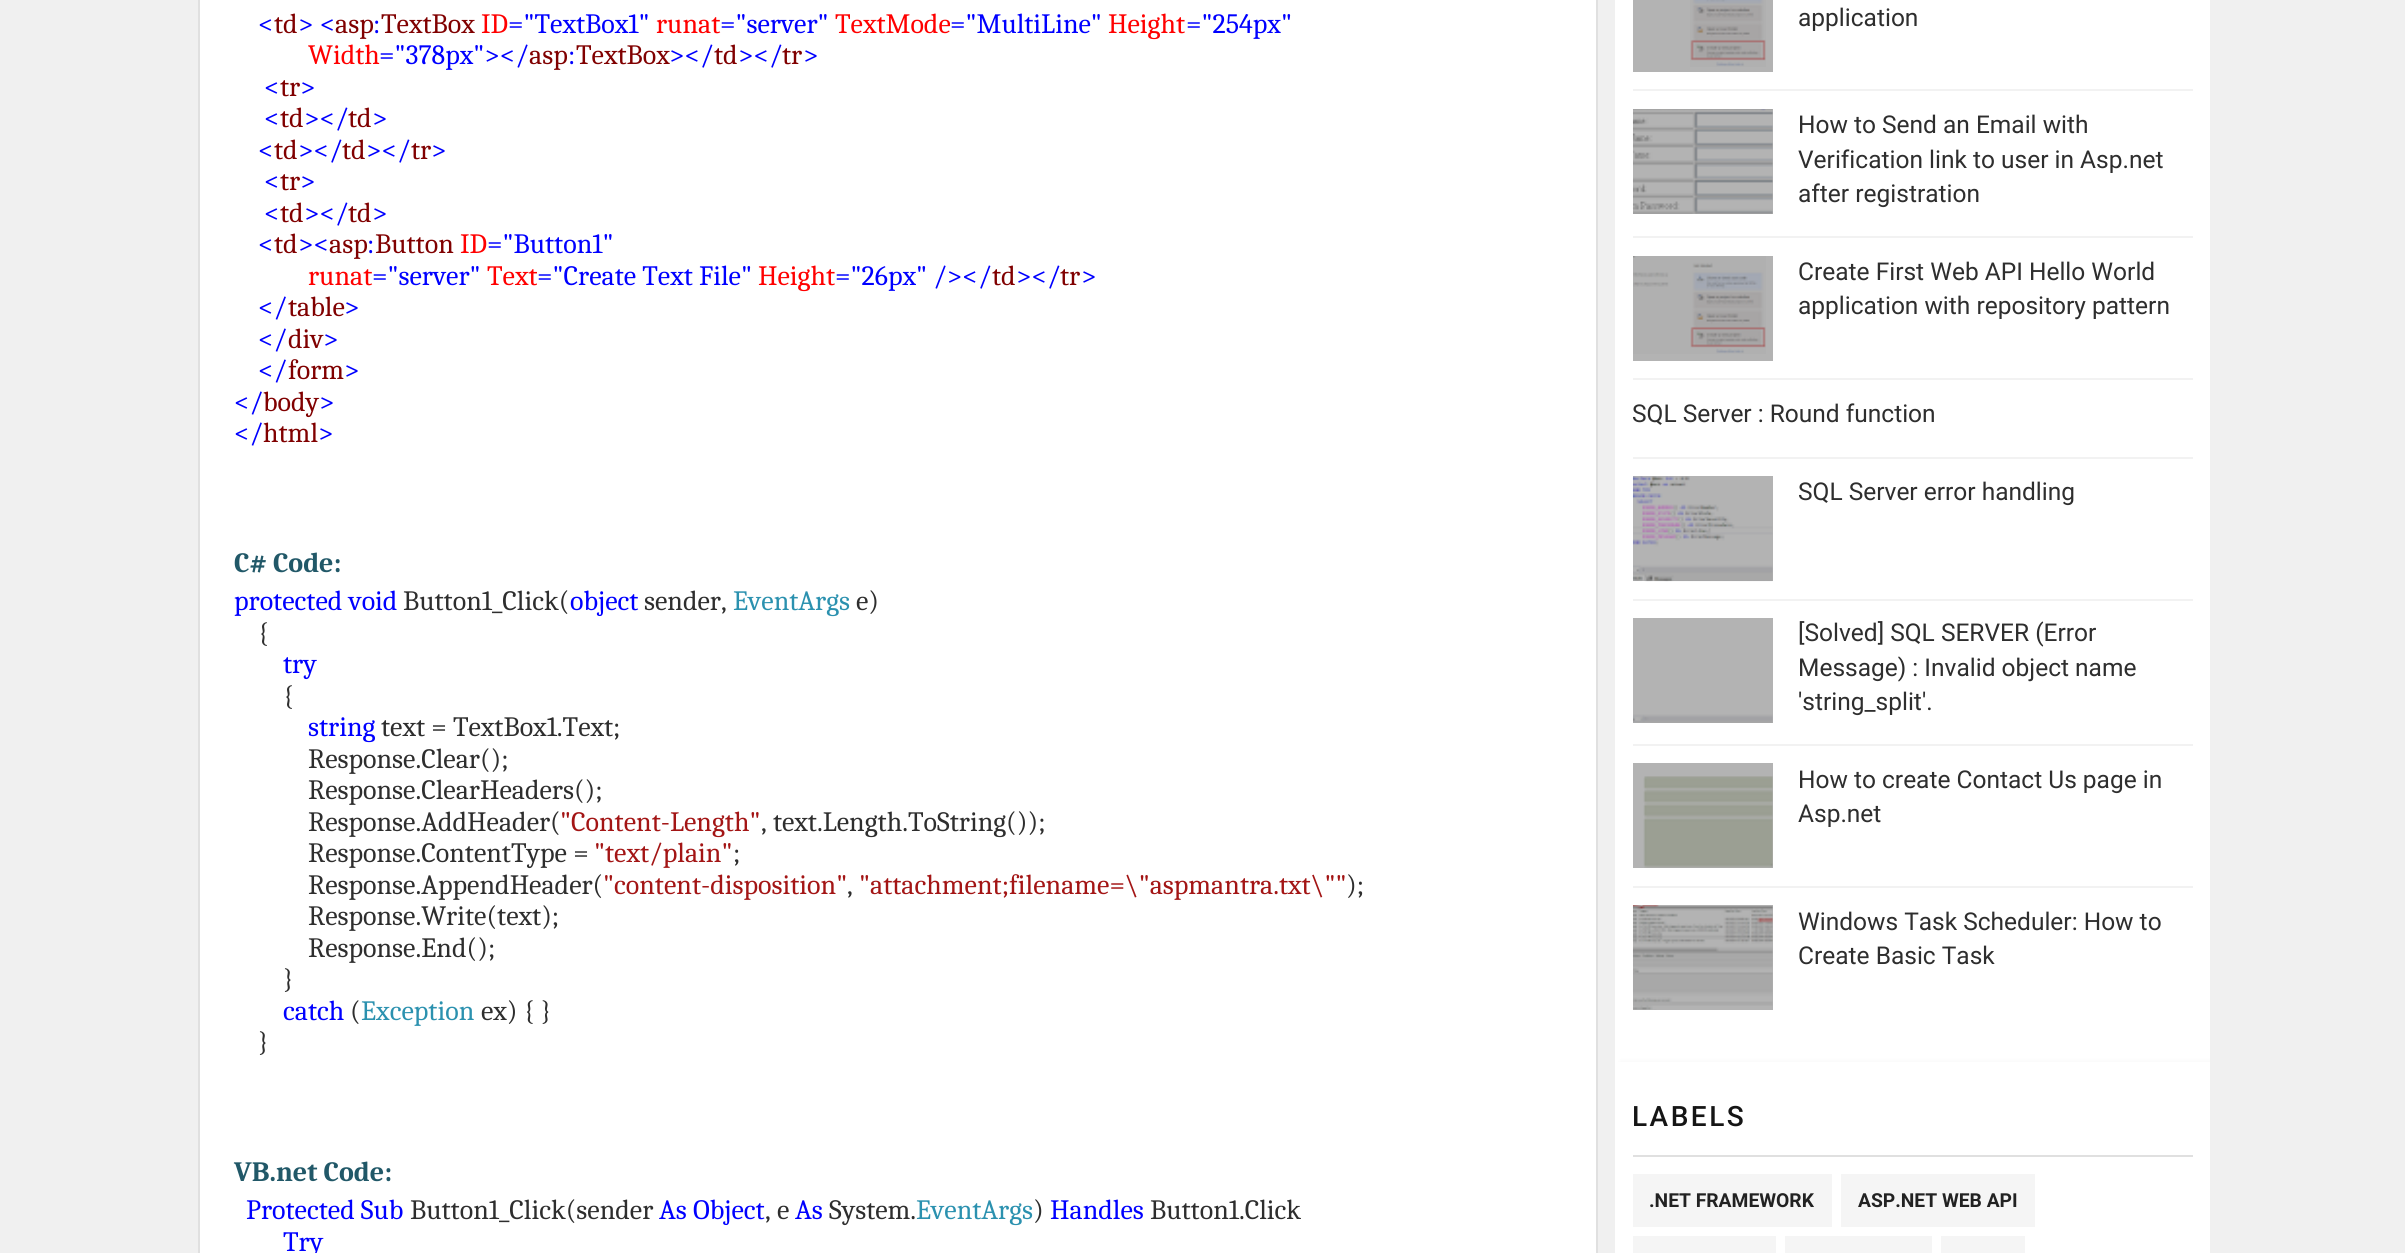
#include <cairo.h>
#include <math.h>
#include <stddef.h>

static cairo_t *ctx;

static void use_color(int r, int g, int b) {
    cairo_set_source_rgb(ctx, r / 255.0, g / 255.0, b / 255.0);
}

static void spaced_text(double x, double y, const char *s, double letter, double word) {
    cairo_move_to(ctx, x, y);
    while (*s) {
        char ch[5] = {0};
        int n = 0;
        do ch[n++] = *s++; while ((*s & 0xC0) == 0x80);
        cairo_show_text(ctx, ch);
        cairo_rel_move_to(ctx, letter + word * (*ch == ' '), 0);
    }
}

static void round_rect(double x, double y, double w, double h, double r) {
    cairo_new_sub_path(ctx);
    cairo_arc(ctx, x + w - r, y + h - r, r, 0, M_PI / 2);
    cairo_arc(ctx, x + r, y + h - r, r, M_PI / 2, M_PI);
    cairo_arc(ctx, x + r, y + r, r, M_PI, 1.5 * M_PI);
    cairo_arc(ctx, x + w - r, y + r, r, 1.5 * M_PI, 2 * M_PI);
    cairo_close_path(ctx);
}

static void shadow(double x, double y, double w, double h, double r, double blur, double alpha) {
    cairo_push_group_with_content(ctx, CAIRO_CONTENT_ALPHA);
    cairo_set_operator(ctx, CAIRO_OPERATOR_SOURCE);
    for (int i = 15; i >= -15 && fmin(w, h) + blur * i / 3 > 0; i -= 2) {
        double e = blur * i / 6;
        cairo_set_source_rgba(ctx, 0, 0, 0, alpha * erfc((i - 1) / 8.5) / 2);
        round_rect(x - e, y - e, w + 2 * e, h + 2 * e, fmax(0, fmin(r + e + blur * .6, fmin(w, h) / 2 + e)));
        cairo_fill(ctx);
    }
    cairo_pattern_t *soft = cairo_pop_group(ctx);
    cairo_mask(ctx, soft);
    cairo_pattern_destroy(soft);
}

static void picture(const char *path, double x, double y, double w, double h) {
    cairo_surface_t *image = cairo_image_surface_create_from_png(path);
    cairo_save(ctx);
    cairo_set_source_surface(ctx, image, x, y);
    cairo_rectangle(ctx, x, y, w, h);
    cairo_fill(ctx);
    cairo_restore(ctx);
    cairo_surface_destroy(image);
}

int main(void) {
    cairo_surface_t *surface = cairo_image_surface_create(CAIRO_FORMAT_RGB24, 2405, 1253);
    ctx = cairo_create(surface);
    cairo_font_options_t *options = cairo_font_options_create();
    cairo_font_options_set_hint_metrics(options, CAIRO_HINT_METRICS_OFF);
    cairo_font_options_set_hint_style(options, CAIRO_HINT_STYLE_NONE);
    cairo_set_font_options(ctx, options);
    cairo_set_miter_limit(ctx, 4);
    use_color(240, 240, 240);
    cairo_paint(ctx);
    use_color(255, 255, 255);
    cairo_rectangle(ctx, 199, -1, 1398, 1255);
    cairo_fill_preserve(ctx);
    use_color(224, 224, 224);
    cairo_stroke(ctx);
    cairo_select_font_face(ctx, "Caladea", CAIRO_FONT_SLANT_NORMAL, CAIRO_FONT_WEIGHT_NORMAL);
    cairo_set_font_size(ctx, 28);
    use_color(0, 0, 255);
    cairo_move_to(ctx, 258, 33);
    cairo_show_text(ctx, "<");
    use_color(128, 0, 0);
    cairo_move_to(ctx, 274, 33);
    cairo_show_text(ctx, "td");
    use_color(0, 0, 255);
    cairo_move_to(ctx, 298, 33);
    cairo_show_text(ctx, "> <");
    use_color(128, 0, 0);
    cairo_move_to(ctx, 335, 33);
    cairo_show_text(ctx, "asp");
    use_color(0, 0, 255);
    cairo_move_to(ctx, 373, 33);
    cairo_show_text(ctx, ":");
    use_color(128, 0, 0);
    cairo_move_to(ctx, 381, 33);
    cairo_show_text(ctx, "TextBox");
    use_color(255, 0, 0);
    cairo_move_to(ctx, 481, 33);
    cairo_show_text(ctx, "ID");
    use_color(0, 0, 255);
    cairo_move_to(ctx, 508, 33);
    cairo_show_text(ctx, "=\"TextBox1\"");
    use_color(255, 0, 0);
    cairo_move_to(ctx, 656, 33);
    cairo_show_text(ctx, "runat");
    use_color(0, 0, 255);
    cairo_move_to(ctx, 720, 33);
    cairo_show_text(ctx, "=\"server\"");
    use_color(255, 0, 0);
    cairo_move_to(ctx, 835, 33);
    cairo_show_text(ctx, "TextMode");
    use_color(0, 0, 255);
    cairo_move_to(ctx, 950, 33);
    cairo_show_text(ctx, "=\"MultiLine\"");
    use_color(255, 0, 0);
    cairo_move_to(ctx, 1108, 33);
    cairo_show_text(ctx, "Height");
    use_color(0, 0, 255);
    cairo_move_to(ctx, 1186, 33);
    cairo_show_text(ctx, "=\"254px\"");
    use_color(255, 0, 0);
    cairo_move_to(ctx, 308, 64);
    cairo_show_text(ctx, "Width");
    use_color(0, 0, 255);
    cairo_move_to(ctx, 379, 64);
    cairo_show_text(ctx, "=\"378px\"></");
    use_color(128, 0, 0);
    cairo_move_to(ctx, 529, 64);
    cairo_show_text(ctx, "asp");
    use_color(0, 0, 255);
    cairo_move_to(ctx, 568, 64);
    cairo_show_text(ctx, ":");
    use_color(128, 0, 0);
    cairo_move_to(ctx, 576, 64);
    cairo_show_text(ctx, "TextBox");
    use_color(0, 0, 255);
    cairo_move_to(ctx, 669, 64);
    cairo_show_text(ctx, "></");
    use_color(128, 0, 0);
    cairo_move_to(ctx, 714, 64);
    cairo_show_text(ctx, "td");
    use_color(0, 0, 255);
    cairo_move_to(ctx, 738, 64);
    cairo_show_text(ctx, "></");
    use_color(128, 0, 0);
    cairo_move_to(ctx, 782, 64);
    cairo_show_text(ctx, "tr");
    use_color(0, 0, 255);
    cairo_move_to(ctx, 803, 64);
    cairo_show_text(ctx, ">");
    cairo_move_to(ctx, 264, 96);
    cairo_show_text(ctx, "<");
    use_color(128, 0, 0);
    cairo_move_to(ctx, 280, 96);
    cairo_show_text(ctx, "tr");
    use_color(0, 0, 255);
    cairo_move_to(ctx, 300, 96);
    cairo_show_text(ctx, ">");
    cairo_move_to(ctx, 264, 127);
    cairo_show_text(ctx, "<");
    use_color(128, 0, 0);
    cairo_move_to(ctx, 280, 127);
    cairo_show_text(ctx, "td");
    use_color(0, 0, 255);
    cairo_move_to(ctx, 304, 127);
    cairo_show_text(ctx, "></");
    use_color(128, 0, 0);
    cairo_move_to(ctx, 348, 127);
    cairo_show_text(ctx, "td");
    use_color(0, 0, 255);
    cairo_move_to(ctx, 372, 127);
    cairo_show_text(ctx, ">");
    cairo_move_to(ctx, 258, 159);
    cairo_show_text(ctx, "<");
    use_color(128, 0, 0);
    cairo_move_to(ctx, 274, 159);
    cairo_show_text(ctx, "td");
    use_color(0, 0, 255);
    cairo_move_to(ctx, 298, 159);
    cairo_show_text(ctx, "></");
    use_color(128, 0, 0);
    cairo_move_to(ctx, 342, 159);
    cairo_show_text(ctx, "td");
    use_color(0, 0, 255);
    cairo_move_to(ctx, 366, 159);
    cairo_show_text(ctx, "></");
    use_color(128, 0, 0);
    cairo_move_to(ctx, 411, 159);
    cairo_show_text(ctx, "tr");
    use_color(0, 0, 255);
    cairo_move_to(ctx, 431, 159);
    cairo_show_text(ctx, ">");
    cairo_move_to(ctx, 264, 190);
    cairo_show_text(ctx, "<");
    use_color(128, 0, 0);
    cairo_move_to(ctx, 280, 190);
    cairo_show_text(ctx, "tr");
    use_color(0, 0, 255);
    cairo_move_to(ctx, 300, 190);
    cairo_show_text(ctx, ">");
    cairo_move_to(ctx, 264, 222);
    cairo_show_text(ctx, "<");
    use_color(128, 0, 0);
    cairo_move_to(ctx, 280, 222);
    cairo_show_text(ctx, "td");
    use_color(0, 0, 255);
    cairo_move_to(ctx, 304, 222);
    cairo_show_text(ctx, "></");
    use_color(128, 0, 0);
    cairo_move_to(ctx, 348, 222);
    cairo_show_text(ctx, "td");
    use_color(0, 0, 255);
    cairo_move_to(ctx, 372, 222);
    cairo_show_text(ctx, ">");
    cairo_move_to(ctx, 258, 253);
    cairo_show_text(ctx, "<");
    use_color(128, 0, 0);
    cairo_move_to(ctx, 274, 253);
    cairo_show_text(ctx, "td");
    use_color(0, 0, 255);
    cairo_move_to(ctx, 298, 253);
    cairo_show_text(ctx, "><");
    use_color(128, 0, 0);
    cairo_move_to(ctx, 329, 253);
    cairo_show_text(ctx, "asp");
    use_color(0, 0, 255);
    cairo_move_to(ctx, 367, 253);
    cairo_show_text(ctx, ":");
    use_color(128, 0, 0);
    cairo_move_to(ctx, 375, 253);
    cairo_show_text(ctx, "Button");
    use_color(255, 0, 0);
    cairo_move_to(ctx, 460, 253);
    cairo_show_text(ctx, "ID");
    use_color(0, 0, 255);
    cairo_move_to(ctx, 487, 253);
    cairo_show_text(ctx, "=\"Button1\"");
    use_color(255, 0, 0);
    cairo_move_to(ctx, 308, 285);
    cairo_show_text(ctx, "runat");
    use_color(0, 0, 255);
    cairo_move_to(ctx, 372, 285);
    cairo_show_text(ctx, "=\"server\"");
    use_color(255, 0, 0);
    cairo_move_to(ctx, 487, 285);
    cairo_show_text(ctx, "Text");
    use_color(0, 0, 255);
    cairo_move_to(ctx, 537, 285);
    cairo_show_text(ctx, "=\"Create Text File\"");
    use_color(255, 0, 0);
    cairo_move_to(ctx, 758, 285);
    cairo_show_text(ctx, "Height");
    use_color(0, 0, 255);
    cairo_move_to(ctx, 835, 285);
    cairo_show_text(ctx, "=\"26px\" /></");
    use_color(128, 0, 0);
    cairo_move_to(ctx, 992, 285);
    cairo_show_text(ctx, "td");
    use_color(0, 0, 255);
    cairo_move_to(ctx, 1016, 285);
    cairo_show_text(ctx, "></");
    use_color(128, 0, 0);
    cairo_move_to(ctx, 1060, 285);
    cairo_show_text(ctx, "tr");
    use_color(0, 0, 255);
    cairo_move_to(ctx, 1081, 285);
    cairo_show_text(ctx, ">");
    cairo_move_to(ctx, 258, 316);
    cairo_show_text(ctx, "</");
    use_color(128, 0, 0);
    cairo_move_to(ctx, 288, 316);
    cairo_show_text(ctx, "table");
    use_color(0, 0, 255);
    cairo_move_to(ctx, 344, 316);
    cairo_show_text(ctx, ">");
    cairo_move_to(ctx, 258, 348);
    cairo_show_text(ctx, "</");
    use_color(128, 0, 0);
    cairo_move_to(ctx, 288, 348);
    cairo_show_text(ctx, "div");
    use_color(0, 0, 255);
    cairo_move_to(ctx, 323, 348);
    cairo_show_text(ctx, ">");
    cairo_move_to(ctx, 258, 379);
    cairo_show_text(ctx, "</");
    use_color(128, 0, 0);
    cairo_move_to(ctx, 288, 379);
    cairo_show_text(ctx, "form");
    use_color(0, 0, 255);
    cairo_move_to(ctx, 344, 379);
    cairo_show_text(ctx, ">");
    cairo_move_to(ctx, 234, 411);
    cairo_show_text(ctx, "</");
    use_color(128, 0, 0);
    cairo_move_to(ctx, 263, 411);
    cairo_show_text(ctx, "body");
    use_color(0, 0, 255);
    cairo_move_to(ctx, 319, 411);
    cairo_show_text(ctx, ">");
    cairo_move_to(ctx, 234, 442);
    cairo_show_text(ctx, "</");
    use_color(128, 0, 0);
    cairo_move_to(ctx, 263, 442);
    cairo_show_text(ctx, "html");
    use_color(0, 0, 255);
    cairo_move_to(ctx, 318, 442);
    cairo_show_text(ctx, ">");
    cairo_select_font_face(ctx, "Caladea", CAIRO_FONT_SLANT_NORMAL, CAIRO_FONT_WEIGHT_BOLD);
    use_color(33, 88, 104);
    cairo_move_to(ctx, 234, 572);
    cairo_show_text(ctx, "C# Code:");
    cairo_select_font_face(ctx, "Caladea", CAIRO_FONT_SLANT_NORMAL, CAIRO_FONT_WEIGHT_NORMAL);
    use_color(0, 0, 255);
    cairo_move_to(ctx, 234, 610);
    cairo_show_text(ctx, "protected void");
    use_color(46, 46, 46);
    cairo_move_to(ctx, 403, 610);
    cairo_show_text(ctx, "Button1_Click(");
    use_color(0, 0, 255);
    cairo_move_to(ctx, 570, 610);
    cairo_show_text(ctx, "object");
    use_color(46, 46, 46);
    cairo_move_to(ctx, 644, 610);
    cairo_show_text(ctx, "sender,");
    use_color(43, 145, 175);
    cairo_move_to(ctx, 733, 610);
    cairo_show_text(ctx, "EventArgs");
    use_color(46, 46, 46);
    cairo_move_to(ctx, 856, 610);
    cairo_show_text(ctx, "e)");
    cairo_move_to(ctx, 258, 642);
    cairo_show_text(ctx, "{");
    use_color(0, 0, 255);
    cairo_move_to(ctx, 283, 673);
    cairo_show_text(ctx, "try");
    use_color(46, 46, 46);
    cairo_move_to(ctx, 283, 705);
    cairo_show_text(ctx, "{");
    use_color(0, 0, 255);
    cairo_move_to(ctx, 308, 736);
    cairo_show_text(ctx, "string");
    use_color(46, 46, 46);
    cairo_move_to(ctx, 381, 736);
    cairo_show_text(ctx, "text = TextBox1.Text;");
    cairo_move_to(ctx, 308, 768);
    cairo_show_text(ctx, "Response.Clear();");
    cairo_move_to(ctx, 308, 799);
    cairo_show_text(ctx, "Response.ClearHeaders();");
    cairo_move_to(ctx, 308, 831);
    cairo_show_text(ctx, "Response.AddHeader(");
    use_color(163, 21, 21);
    cairo_move_to(ctx, 560, 831);
    cairo_show_text(ctx, "\"Content-Length\"");
    use_color(46, 46, 46);
    cairo_move_to(ctx, 761, 831);
    cairo_show_text(ctx, ", text.Length.ToString());");
    cairo_move_to(ctx, 308, 862);
    cairo_show_text(ctx, "Response.ContentType =");
    use_color(163, 21, 21);
    cairo_move_to(ctx, 594, 862);
    cairo_show_text(ctx, "\"text/plain\"");
    use_color(46, 46, 46);
    cairo_move_to(ctx, 733, 862);
    cairo_show_text(ctx, ";");
    cairo_move_to(ctx, 308, 894);
    cairo_show_text(ctx, "Response.AppendHeader(");
    use_color(163, 21, 21);
    cairo_move_to(ctx, 603, 894);
    cairo_show_text(ctx, "\"content-disposition\"");
    use_color(46, 46, 46);
    cairo_move_to(ctx, 847, 894);
    cairo_show_text(ctx, ",");
    use_color(163, 21, 21);
    cairo_move_to(ctx, 859, 894);
    cairo_show_text(ctx, "\"attachment;filename=\\\"aspmantra.txt\\\"\"");
    use_color(46, 46, 46);
    cairo_move_to(ctx, 1346, 894);
    cairo_show_text(ctx, ");");
    cairo_move_to(ctx, 308, 925);
    cairo_show_text(ctx, "Response.Write(text);");
    cairo_move_to(ctx, 308, 957);
    cairo_show_text(ctx, "Response.End();");
    cairo_move_to(ctx, 283, 988);
    cairo_show_text(ctx, "}");
    use_color(0, 0, 255);
    cairo_move_to(ctx, 283, 1020);
    cairo_show_text(ctx, "catch");
    use_color(46, 46, 46);
    cairo_move_to(ctx, 350, 1020);
    cairo_show_text(ctx, "(");
    use_color(43, 145, 175);
    cairo_move_to(ctx, 361, 1020);
    cairo_show_text(ctx, "Exception");
    use_color(46, 46, 46);
    cairo_move_to(ctx, 481, 1020);
    cairo_show_text(ctx, "ex) { }");
    cairo_move_to(ctx, 258, 1051);
    cairo_show_text(ctx, "}");
    cairo_select_font_face(ctx, "Caladea", CAIRO_FONT_SLANT_NORMAL, CAIRO_FONT_WEIGHT_BOLD);
    use_color(33, 88, 104);
    cairo_move_to(ctx, 234, 1181);
    cairo_show_text(ctx, "VB.net Code:");
    cairo_select_font_face(ctx, "Caladea", CAIRO_FONT_SLANT_NORMAL, CAIRO_FONT_WEIGHT_NORMAL);
    use_color(0, 0, 255);
    cairo_move_to(ctx, 246, 1219);
    cairo_show_text(ctx, "Protected Sub");
    use_color(46, 46, 46);
    cairo_move_to(ctx, 410, 1219);
    cairo_show_text(ctx, "Button1_Click(sender");
    use_color(0, 0, 255);
    cairo_move_to(ctx, 659, 1219);
    cairo_show_text(ctx, "As Object");
    use_color(46, 46, 46);
    cairo_move_to(ctx, 765, 1219);
    cairo_show_text(ctx, ", e");
    use_color(0, 0, 255);
    cairo_move_to(ctx, 795, 1219);
    cairo_show_text(ctx, "As");
    use_color(46, 46, 46);
    cairo_move_to(ctx, 829, 1219);
    cairo_show_text(ctx, "System.");
    use_color(43, 145, 175);
    cairo_move_to(ctx, 916, 1219);
    cairo_show_text(ctx, "EventArgs");
    use_color(46, 46, 46);
    cairo_move_to(ctx, 1033, 1219);
    cairo_show_text(ctx, ")");
    use_color(0, 0, 255);
    cairo_move_to(ctx, 1050, 1219);
    cairo_show_text(ctx, "Handles");
    use_color(46, 46, 46);
    cairo_move_to(ctx, 1150, 1219);
    cairo_show_text(ctx, "Button1.Click");
    use_color(0, 0, 255);
    cairo_move_to(ctx, 283, 1251);
    cairo_show_text(ctx, "Try");
    use_color(255, 255, 255);
    cairo_rectangle(ctx, 1615, 0, 595, 1062);
    cairo_fill(ctx);
    use_color(179, 179, 179);
    cairo_rectangle(ctx, 1772, 905, 1, 105);
    cairo_fill(ctx);
    cairo_rectangle(ctx, 1633, 763, 140, 105);
    cairo_fill(ctx);
    cairo_rectangle(ctx, 1633, 618, 140, 105);
    cairo_fill(ctx);
    cairo_rectangle(ctx, 1633, 476, 140, 105);
    cairo_fill(ctx);
    cairo_rectangle(ctx, 1633, 256, 140, 105);
    cairo_fill(ctx);
    cairo_rectangle(ctx, 1633, 109, 140, 105);
    cairo_fill(ctx);
    cairo_rectangle(ctx, 1633, 0, 140, 72);
    cairo_fill(ctx);
    picture("img1.png", 1690, 0, 76, 67);
    cairo_select_font_face(ctx, "Roboto", CAIRO_FONT_SLANT_NORMAL, CAIRO_FONT_WEIGHT_NORMAL);
    cairo_set_font_size(ctx, 24.5);
    use_color(46, 46, 46);
    cairo_move_to(ctx, 1798, 26);
    cairo_show_text(ctx, "application");
    use_color(242, 242, 242);
    cairo_rectangle(ctx, 1633, 89, 560, 2);
    cairo_fill(ctx);
    picture("img2.png", 1632, 109, 141, 105);
    use_color(46, 46, 46);
    cairo_move_to(ctx, 1798, 133);
    cairo_show_text(ctx, "How to Send an Email with");
    cairo_move_to(ctx, 1798, 168);
    cairo_show_text(ctx, "Verification link to user in Asp.net");
    cairo_move_to(ctx, 1798, 202);
    cairo_show_text(ctx, "after registration");
    use_color(242, 242, 242);
    cairo_rectangle(ctx, 1633, 236, 560, 2);
    cairo_fill(ctx);
    picture("img3.png", 1633, 256, 133, 98);
    use_color(46, 46, 46);
    cairo_move_to(ctx, 1798, 280);
    cairo_show_text(ctx, "Create First Web API Hello World");
    cairo_move_to(ctx, 1798, 314);
    cairo_show_text(ctx, "application with repository pattern");
    use_color(242, 242, 242);
    cairo_rectangle(ctx, 1633, 378, 560, 2);
    cairo_fill(ctx);
    use_color(46, 46, 46);
    cairo_move_to(ctx, 1632, 422);
    cairo_show_text(ctx, "SQL Server : Round function");
    use_color(242, 242, 242);
    cairo_rectangle(ctx, 1633, 457, 560, 2);
    cairo_fill(ctx);
    picture("img4.png", 1632, 476, 141, 106);
    use_color(46, 46, 46);
    cairo_move_to(ctx, 1798, 500);
    cairo_show_text(ctx, "SQL Server error handling");
    use_color(242, 242, 242);
    cairo_rectangle(ctx, 1633, 599, 560, 2);
    cairo_fill(ctx);
    use_color(46, 46, 46);
    cairo_move_to(ctx, 1798, 641);
    cairo_show_text(ctx, "[Solved] SQL SERVER (Error");
    cairo_move_to(ctx, 1798, 676);
    cairo_show_text(ctx, "Message) : Invalid object name");
    cairo_move_to(ctx, 1798, 710);
    cairo_show_text(ctx, "'string_split'.");
    picture("img5.png", 1633, 714, 140, 9);
    use_color(242, 242, 242);
    cairo_rectangle(ctx, 1633, 744, 560, 2);
    cairo_fill(ctx);
    picture("img6.png", 1643, 776, 130, 92);
    use_color(46, 46, 46);
    cairo_move_to(ctx, 1798, 788);
    cairo_show_text(ctx, "How to create Contact Us page in");
    cairo_move_to(ctx, 1798, 822);
    cairo_show_text(ctx, "Asp.net");
    use_color(242, 242, 242);
    cairo_rectangle(ctx, 1633, 886, 560, 2);
    cairo_fill(ctx);
    picture("img7.png", 1632, 905, 141, 105);
    use_color(46, 46, 46);
    cairo_move_to(ctx, 1798, 930);
    cairo_show_text(ctx, "Windows Task Scheduler: How to");
    cairo_move_to(ctx, 1798, 964);
    cairo_show_text(ctx, "Create Basic Task");
    cairo_save(ctx);
    cairo_rectangle(ctx, 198, 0, 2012, 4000);
    cairo_clip(ctx);
    use_color(0, 0, 0);
    shadow(1621, 1062, 595, 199, 0, 2.5, 0.05);
    cairo_restore(ctx);
    use_color(255, 255, 255);
    cairo_rectangle(ctx, 1615, 1062, 595, 191);
    cairo_fill(ctx);
    use_color(224, 224, 224);
    cairo_rectangle(ctx, 1633, 1155, 560, 2);
    cairo_fill(ctx);
    cairo_select_font_face(ctx, "Roboto Medium", CAIRO_FONT_SLANT_NORMAL, CAIRO_FONT_WEIGHT_NORMAL);
    cairo_set_font_size(ctx, 28);
    use_color(21, 21, 21);
    spaced_text(1632, 1126, "LABELS", 2.5, 0);
    use_color(245, 245, 245);
    cairo_rectangle(ctx, 1633, 1174, 199, 53);
    cairo_fill(ctx);
    cairo_select_font_face(ctx, "Roboto", CAIRO_FONT_SLANT_NORMAL, CAIRO_FONT_WEIGHT_BOLD);
    cairo_set_font_size(ctx, 19.25);
    use_color(34, 34, 34);
    cairo_move_to(ctx, 1649, 1207);
    cairo_show_text(ctx, ".NET FRAMEWORK");
    use_color(245, 245, 245);
    cairo_rectangle(ctx, 1841, 1174, 194, 53);
    cairo_fill(ctx);
    use_color(34, 34, 34);
    cairo_move_to(ctx, 1858, 1207);
    cairo_show_text(ctx, "ASP.NET WEB API");
    use_color(245, 245, 245);
    cairo_rectangle(ctx, 1633, 1236, 143, 17);
    cairo_fill(ctx);
    cairo_rectangle(ctx, 1785, 1236, 147, 17);
    cairo_fill(ctx);
    cairo_rectangle(ctx, 1941, 1236, 84, 17);
    cairo_fill(ctx);
    cairo_surface_write_to_png(surface, "result.png");
    cairo_font_options_destroy(options);
    cairo_destroy(ctx);
    cairo_surface_destroy(surface);
    return 0;
}
